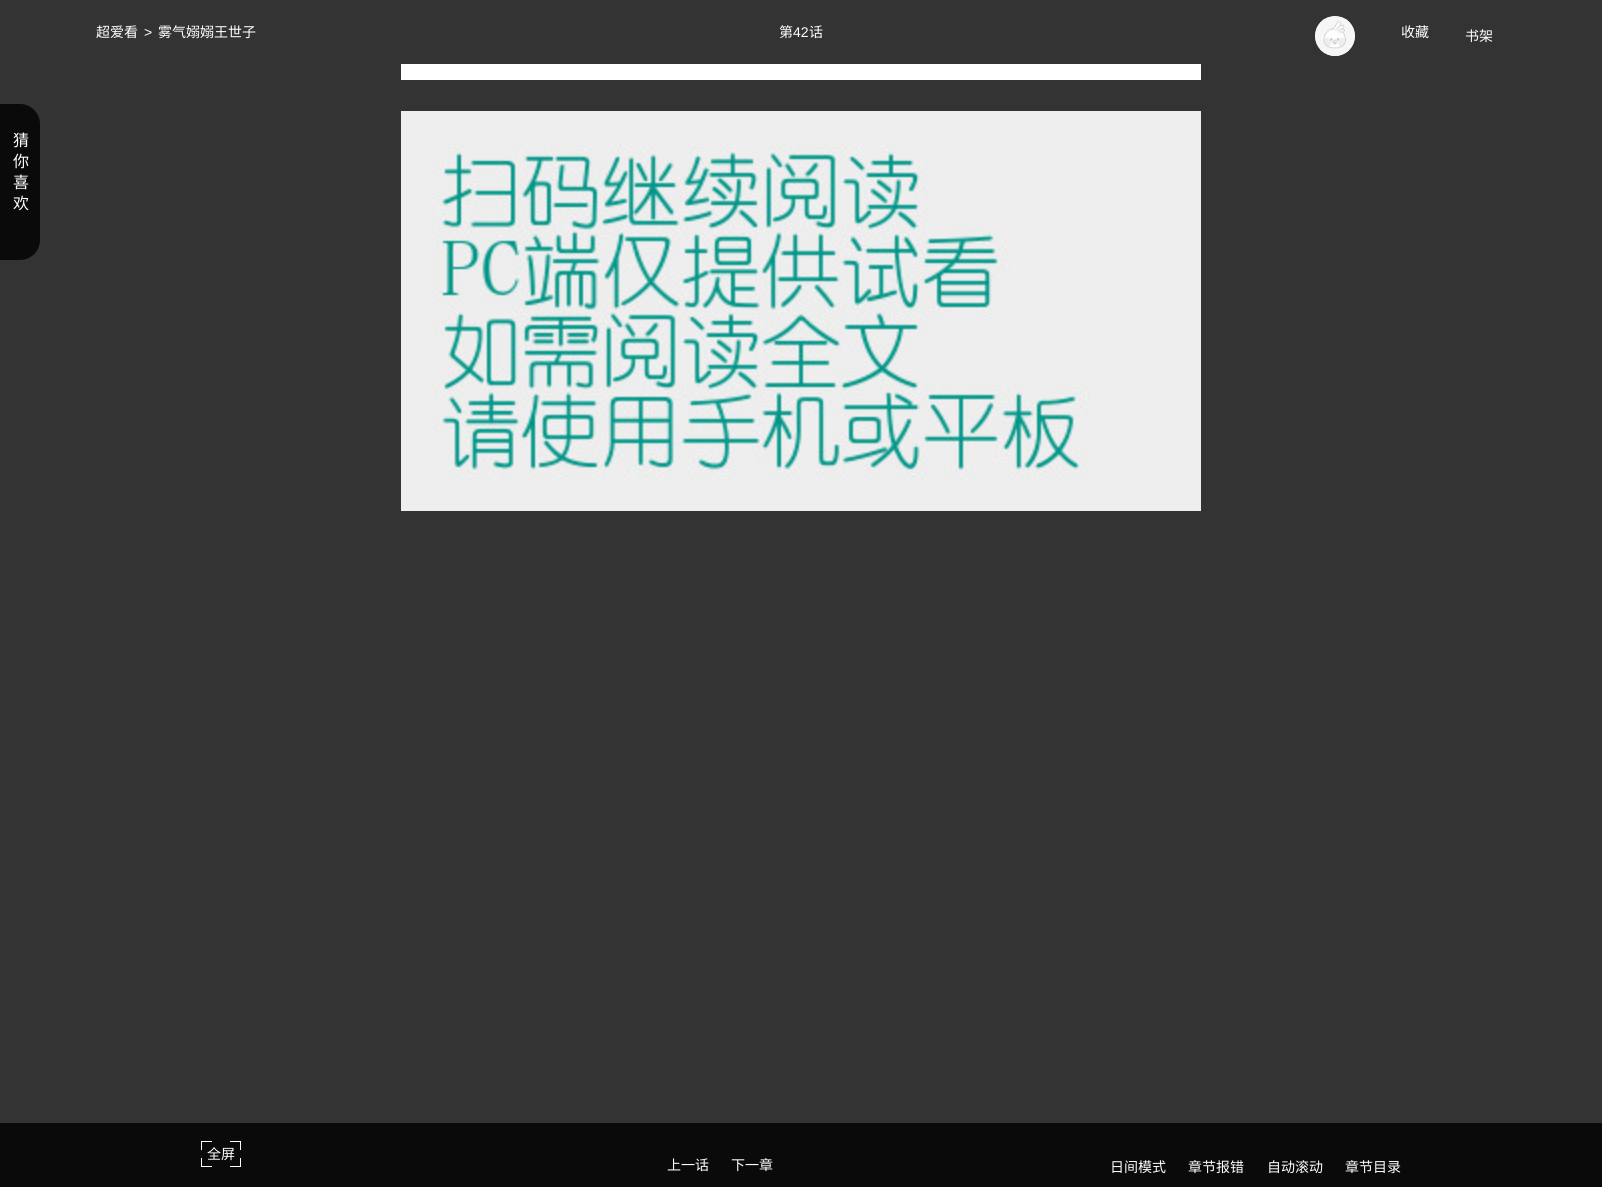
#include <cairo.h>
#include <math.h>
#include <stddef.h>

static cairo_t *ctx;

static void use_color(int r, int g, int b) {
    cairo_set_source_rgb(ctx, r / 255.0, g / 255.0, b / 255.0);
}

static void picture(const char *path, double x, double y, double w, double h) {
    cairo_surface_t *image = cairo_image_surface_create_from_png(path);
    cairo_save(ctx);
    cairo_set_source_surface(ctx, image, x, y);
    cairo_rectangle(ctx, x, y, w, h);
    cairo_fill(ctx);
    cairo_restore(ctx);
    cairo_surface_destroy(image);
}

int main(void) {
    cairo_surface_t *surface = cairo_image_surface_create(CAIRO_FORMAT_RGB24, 1602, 1187);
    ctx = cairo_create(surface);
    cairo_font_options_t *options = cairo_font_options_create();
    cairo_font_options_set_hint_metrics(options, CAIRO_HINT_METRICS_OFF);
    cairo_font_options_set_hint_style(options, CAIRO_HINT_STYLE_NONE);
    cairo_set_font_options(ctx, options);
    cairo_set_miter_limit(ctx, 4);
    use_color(51, 51, 51);
    cairo_paint(ctx);
    cairo_select_font_face(ctx, "Noto Sans CJK SC", CAIRO_FONT_SLANT_NORMAL, CAIRO_FONT_WEIGHT_NORMAL);
    cairo_set_font_size(ctx, 14);
    use_color(255, 255, 255);
    cairo_move_to(ctx, 96, 37);
    cairo_show_text(ctx, "超爱看");
    cairo_select_font_face(ctx, "Liberation Sans", CAIRO_FONT_SLANT_NORMAL, CAIRO_FONT_WEIGHT_NORMAL);
    cairo_move_to(ctx, 144, 37);
    cairo_show_text(ctx, ">");
    cairo_select_font_face(ctx, "Noto Sans CJK SC", CAIRO_FONT_SLANT_NORMAL, CAIRO_FONT_WEIGHT_NORMAL);
    cairo_move_to(ctx, 158, 37);
    cairo_show_text(ctx, "雾气嫋嫋王世子");
    cairo_move_to(ctx, 779, 37);
    cairo_show_text(ctx, "第");
    cairo_select_font_face(ctx, "Liberation Sans", CAIRO_FONT_SLANT_NORMAL, CAIRO_FONT_WEIGHT_NORMAL);
    cairo_move_to(ctx, 793, 37);
    cairo_show_text(ctx, "42");
    cairo_select_font_face(ctx, "Noto Sans CJK SC", CAIRO_FONT_SLANT_NORMAL, CAIRO_FONT_WEIGHT_NORMAL);
    cairo_move_to(ctx, 809, 37);
    cairo_show_text(ctx, "话");
    picture("img1.png", 1315, 16, 40, 40);
    picture("img2.png", 1315, 16, 40, 40);
    cairo_move_to(ctx, 1401, 37);
    cairo_show_text(ctx, "收藏");
    cairo_move_to(ctx, 1465, 41);
    cairo_show_text(ctx, "书架");
    use_color(10, 10, 10);
    cairo_new_path(ctx);
    cairo_move_to(ctx, 0, 104);
    cairo_line_to(ctx, 20, 104);
    cairo_curve_to(ctx, 31, 104, 40, 113, 40, 124);
    cairo_line_to(ctx, 40, 240);
    cairo_curve_to(ctx, 40, 251, 31, 260, 20, 260);
    cairo_line_to(ctx, 0, 260);
    cairo_close_path(ctx);
    cairo_fill(ctx);
    cairo_set_font_size(ctx, 16);
    use_color(255, 255, 255);
    cairo_move_to(ctx, 13, 146);
    cairo_show_text(ctx, "猜");
    cairo_move_to(ctx, 13, 167);
    cairo_show_text(ctx, "你");
    cairo_move_to(ctx, 13, 188);
    cairo_show_text(ctx, "喜");
    cairo_move_to(ctx, 13, 209);
    cairo_show_text(ctx, "欢");
    cairo_rectangle(ctx, 401, 64, 800, 16);
    cairo_fill(ctx);
    picture("img3.png", 401, 111, 800, 400);
    use_color(10, 10, 10);
    cairo_rectangle(ctx, 0, 1123, 1602, 64);
    cairo_fill(ctx);
    use_color(255, 255, 255);
    cairo_rectangle(ctx, 201, 1141, 11, 1);
    cairo_fill(ctx);
    cairo_rectangle(ctx, 201, 1141, 1, 9);
    cairo_fill(ctx);
    cairo_rectangle(ctx, 230, 1141, 11, 1);
    cairo_fill(ctx);
    cairo_rectangle(ctx, 240, 1141, 1, 9);
    cairo_fill(ctx);
    cairo_set_font_size(ctx, 14);
    cairo_move_to(ctx, 207, 1159);
    cairo_show_text(ctx, "全屏");
    cairo_rectangle(ctx, 201, 1166, 11, 1);
    cairo_fill(ctx);
    cairo_rectangle(ctx, 201, 1158, 1, 9);
    cairo_fill(ctx);
    cairo_rectangle(ctx, 240, 1158, 1, 9);
    cairo_fill(ctx);
    cairo_rectangle(ctx, 230, 1166, 11, 1);
    cairo_fill(ctx);
    cairo_move_to(ctx, 667, 1170);
    cairo_show_text(ctx, "上一话");
    cairo_move_to(ctx, 731, 1170);
    cairo_show_text(ctx, "下一章");
    cairo_move_to(ctx, 1110, 1172);
    cairo_show_text(ctx, "日间模式");
    cairo_move_to(ctx, 1188, 1172);
    cairo_show_text(ctx, "章节报错");
    cairo_move_to(ctx, 1267, 1172);
    cairo_show_text(ctx, "自动滚动");
    cairo_move_to(ctx, 1345, 1172);
    cairo_show_text(ctx, "章节目录");
    cairo_surface_write_to_png(surface, "result.png");
    cairo_font_options_destroy(options);
    cairo_destroy(ctx);
    cairo_surface_destroy(surface);
    return 0;
}
